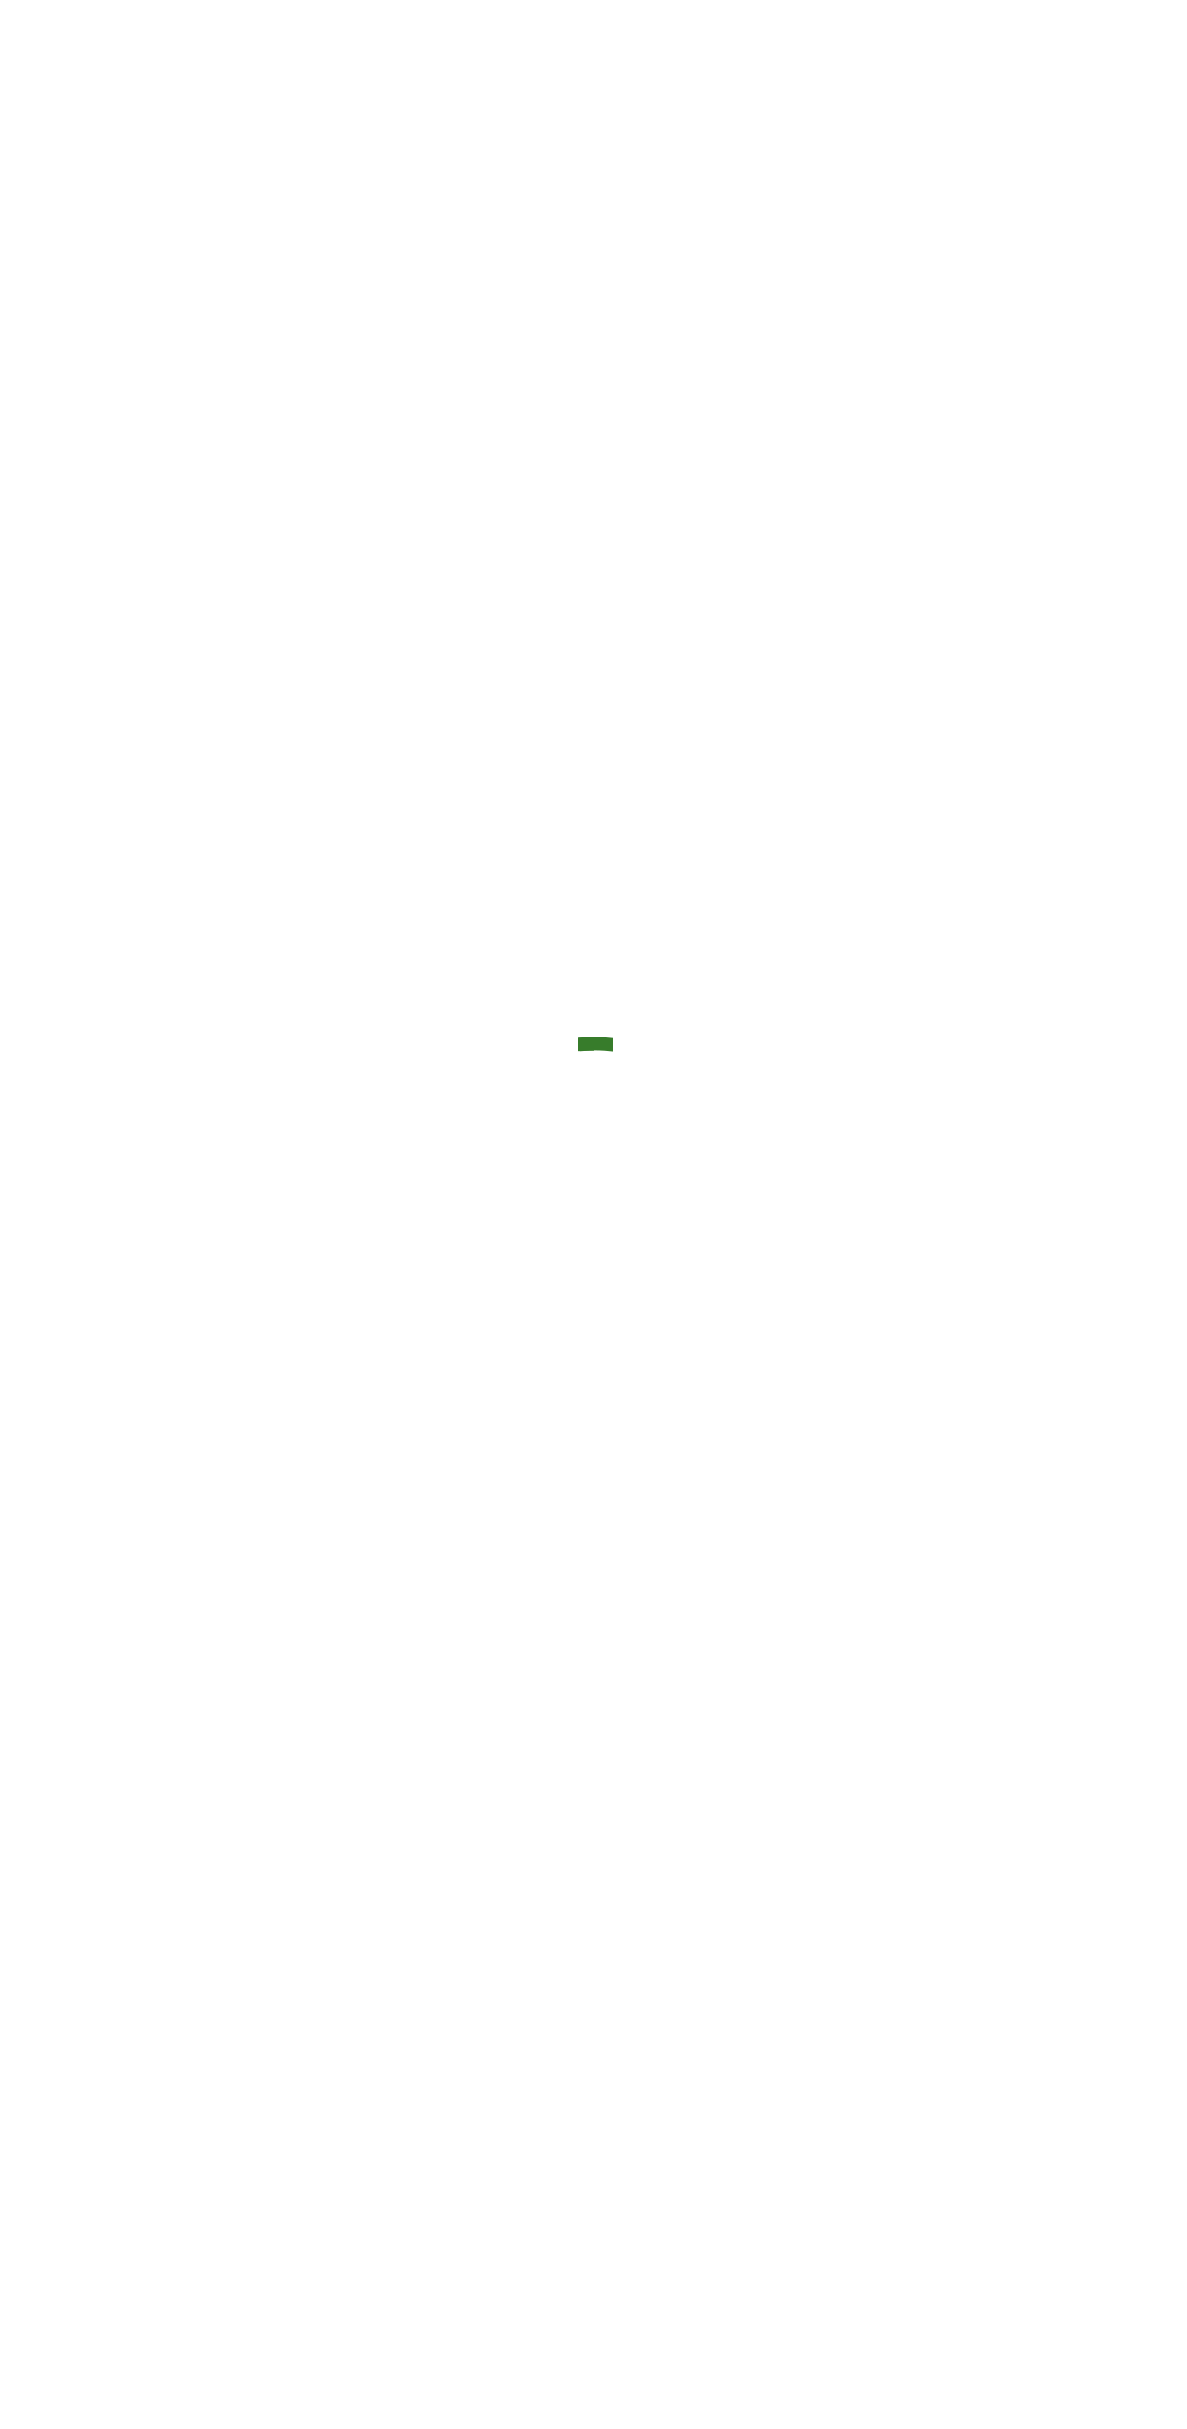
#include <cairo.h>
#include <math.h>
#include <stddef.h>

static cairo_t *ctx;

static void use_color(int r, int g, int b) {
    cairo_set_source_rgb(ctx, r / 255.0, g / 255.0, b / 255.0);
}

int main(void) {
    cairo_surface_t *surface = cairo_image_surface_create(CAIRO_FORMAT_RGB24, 1187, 2429);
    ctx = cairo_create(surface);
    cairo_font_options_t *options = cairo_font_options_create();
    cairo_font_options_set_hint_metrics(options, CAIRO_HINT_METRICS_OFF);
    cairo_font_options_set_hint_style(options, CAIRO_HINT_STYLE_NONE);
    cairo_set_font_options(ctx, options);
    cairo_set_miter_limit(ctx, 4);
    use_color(255, 255, 255);
    cairo_paint(ctx);
    cairo_save(ctx);
    cairo_rectangle(ctx, 415, 1037, 179, 357);
    cairo_clip(ctx);
    cairo_new_path(ctx);
    cairo_move_to(ctx, 579, 1044.5);
    cairo_curve_to(ctx, 607, 1042, 635.5, 1046.5, 661.5, 1057.5);
    cairo_curve_to(ctx, 780.5, 1108, 802.5, 1268.5, 701.5, 1349.5);
    cairo_curve_to(ctx, 675, 1371, 642.5, 1384, 609, 1386.5);
    use_color(55, 124, 43);
    cairo_set_line_width(ctx, 13.7);
    cairo_stroke(ctx);
    cairo_restore(ctx);
    cairo_save(ctx);
    cairo_rectangle(ctx, 578, 1037, 35, 357);
    cairo_clip(ctx);
    cairo_new_path(ctx);
    cairo_move_to(ctx, 472.5, 1337);
    cairo_curve_to(ctx, 432, 1297, 414.5, 1237.5, 425.5, 1182);
    cairo_curve_to(ctx, 432, 1148.5, 448.5, 1118, 472.5, 1094);
    cairo_curve_to(ctx, 492.5, 1074, 517, 1059, 544, 1051);
    cairo_curve_to(ctx, 654, 1017.5, 766, 1100.5, 766, 1215.5);
    cairo_curve_to(ctx, 766, 1261, 747.5, 1305, 715.5, 1337);
    use_color(55, 124, 43);
    cairo_set_line_width(ctx, 13.8);
    cairo_stroke(ctx);
    cairo_restore(ctx);
    cairo_surface_write_to_png(surface, "result.png");
    cairo_font_options_destroy(options);
    cairo_destroy(ctx);
    cairo_surface_destroy(surface);
    return 0;
}
